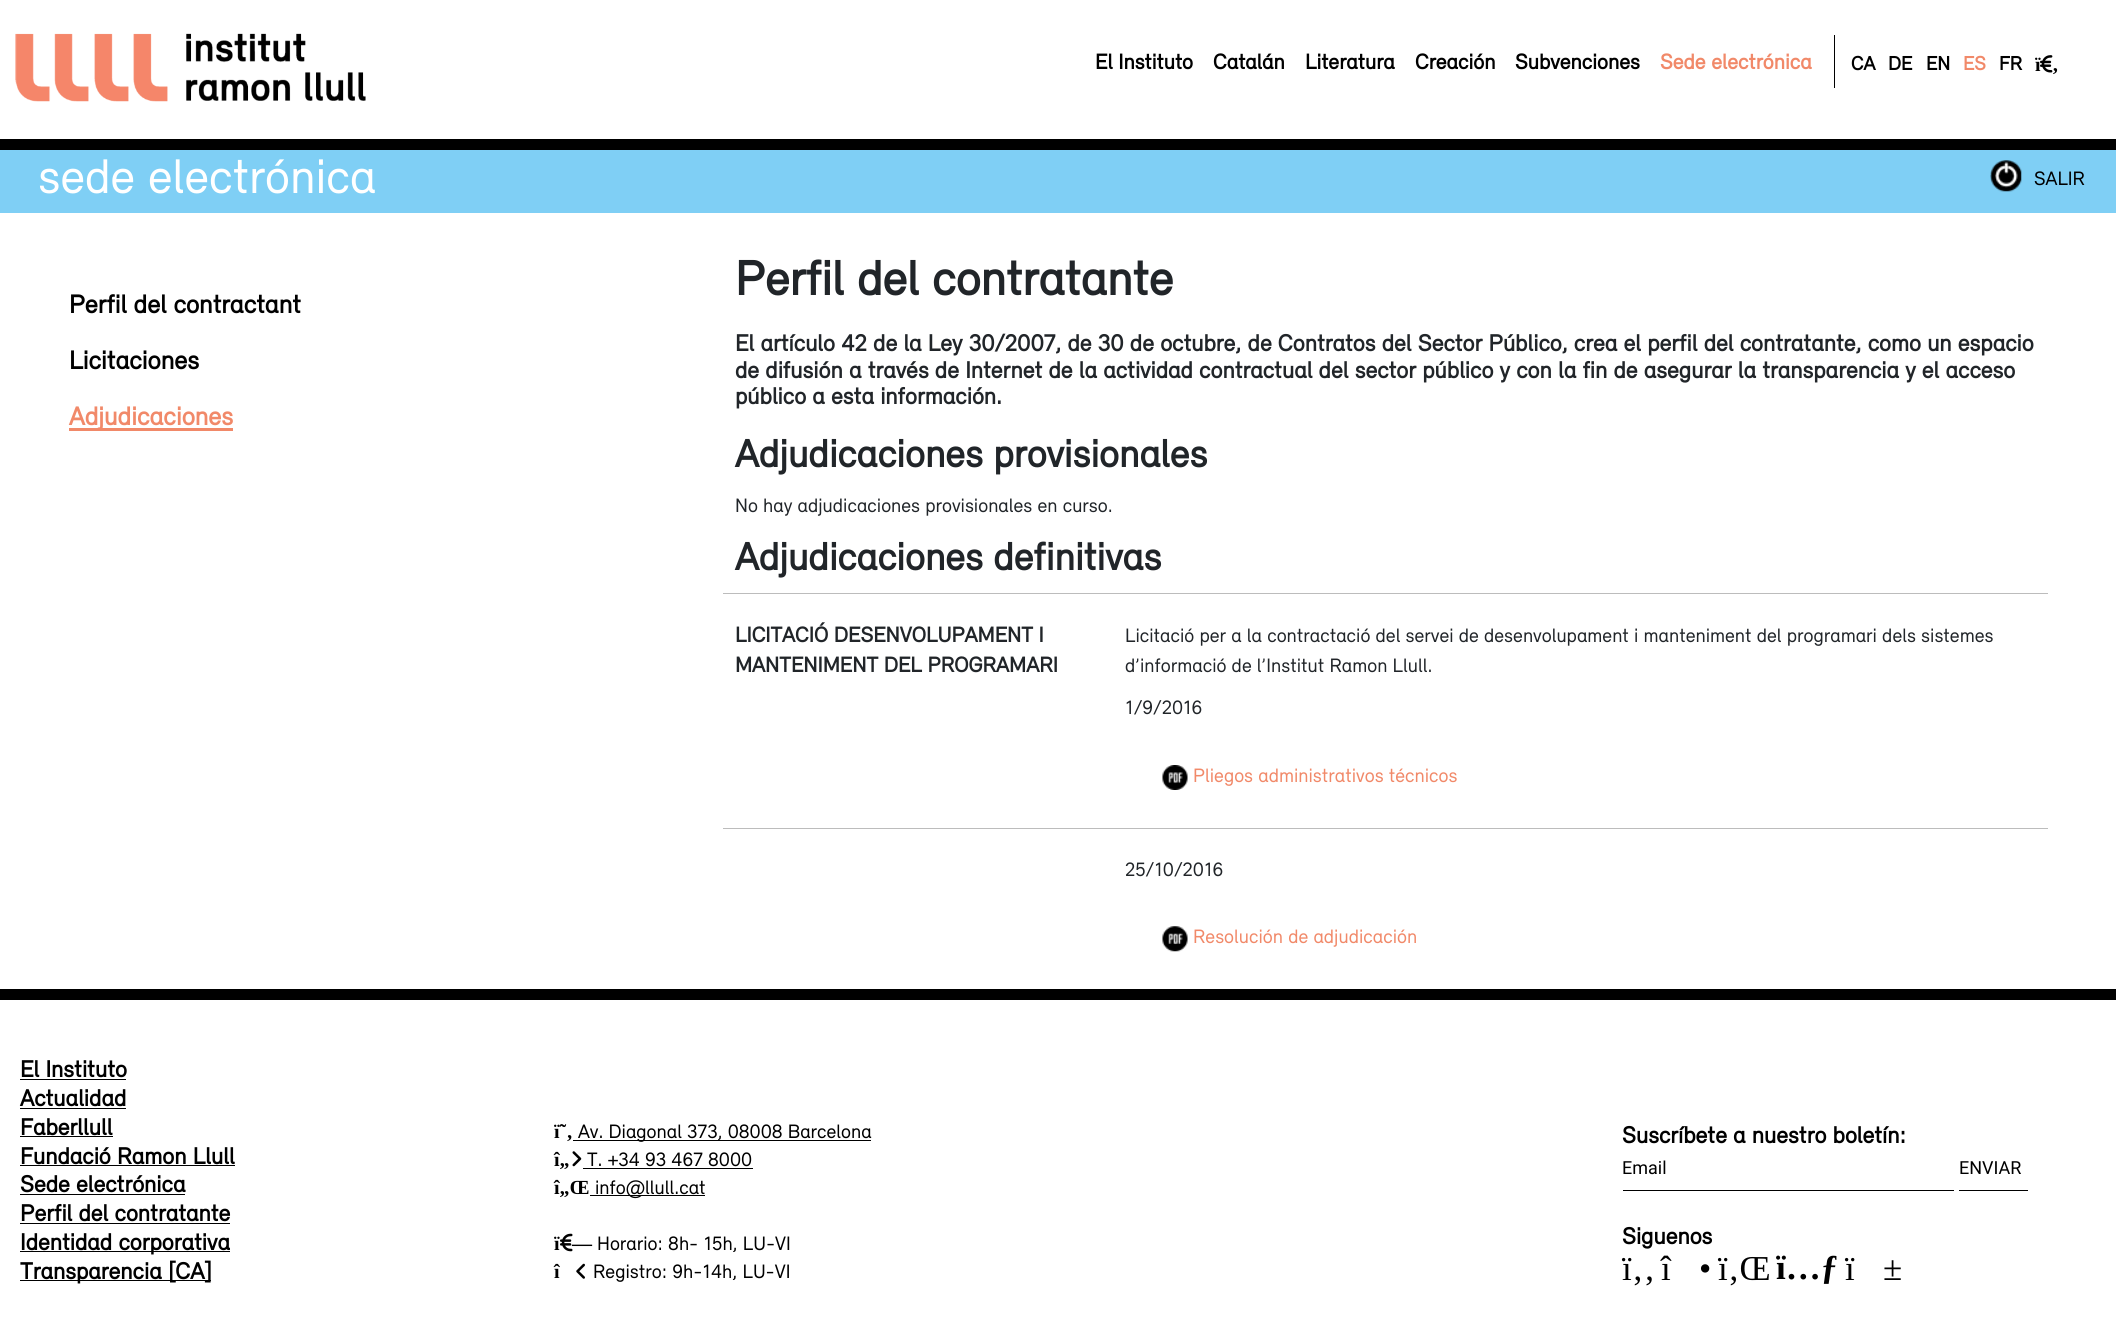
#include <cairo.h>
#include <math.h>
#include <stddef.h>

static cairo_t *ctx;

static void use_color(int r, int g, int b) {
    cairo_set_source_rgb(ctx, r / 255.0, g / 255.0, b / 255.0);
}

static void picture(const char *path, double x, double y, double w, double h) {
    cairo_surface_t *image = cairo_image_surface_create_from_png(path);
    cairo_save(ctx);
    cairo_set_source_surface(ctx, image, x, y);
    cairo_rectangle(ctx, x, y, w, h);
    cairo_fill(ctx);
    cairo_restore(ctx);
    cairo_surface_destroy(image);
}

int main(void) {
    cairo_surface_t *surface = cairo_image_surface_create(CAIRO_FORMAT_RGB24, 2116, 1324);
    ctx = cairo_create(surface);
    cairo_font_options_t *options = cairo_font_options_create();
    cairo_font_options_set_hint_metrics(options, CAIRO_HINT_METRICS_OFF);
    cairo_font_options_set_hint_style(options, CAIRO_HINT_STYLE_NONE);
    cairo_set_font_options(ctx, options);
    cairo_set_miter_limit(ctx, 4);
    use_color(255, 255, 255);
    cairo_paint(ctx);
    use_color(0, 0, 0);
    cairo_rectangle(ctx, 0, 139, 2116, 11);
    cairo_fill(ctx);
    picture("img1.png", 15, 33, 153, 69);
    picture("img2.png", 186, 33, 180, 68);
    cairo_select_font_face(ctx, "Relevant", CAIRO_FONT_SLANT_NORMAL, CAIRO_FONT_WEIGHT_BOLD);
    cairo_set_font_size(ctx, 22);
    cairo_move_to(ctx, 1095, 69);
    cairo_show_text(ctx, "El Instituto");
    cairo_move_to(ctx, 1213, 69);
    cairo_show_text(ctx, "Catalán");
    cairo_move_to(ctx, 1305, 69);
    cairo_show_text(ctx, "Literatura");
    cairo_move_to(ctx, 1415, 69);
    cairo_show_text(ctx, "Creación");
    cairo_move_to(ctx, 1515, 69);
    cairo_show_text(ctx, "Subvenciones");
    use_color(241, 137, 105);
    cairo_move_to(ctx, 1660, 69);
    cairo_show_text(ctx, "Sede electrónica");
    use_color(0, 0, 0);
    cairo_rectangle(ctx, 1834, 35, 1, 53);
    cairo_fill(ctx);
    cairo_set_font_size(ctx, 20);
    cairo_move_to(ctx, 1851, 70);
    cairo_show_text(ctx, "CA");
    cairo_move_to(ctx, 1888, 70);
    cairo_show_text(ctx, "DE");
    cairo_move_to(ctx, 1926, 70);
    cairo_show_text(ctx, "EN");
    use_color(241, 137, 105);
    cairo_move_to(ctx, 1963, 70);
    cairo_show_text(ctx, "ES");
    use_color(0, 0, 0);
    cairo_move_to(ctx, 1999, 70);
    cairo_show_text(ctx, "FR");
    picture("img3.png", 2040, 55, 13, 18);
    cairo_select_font_face(ctx, "Liberation Serif", CAIRO_FONT_SLANT_NORMAL, CAIRO_FONT_WEIGHT_BOLD);
    cairo_move_to(ctx, 2035, 71);
    cairo_show_text(ctx, "ï");
    cairo_move_to(ctx, 2052, 71);
    cairo_show_text(ctx, "‚");
    use_color(127, 207, 245);
    cairo_rectangle(ctx, 0, 150, 2116, 63);
    cairo_fill(ctx);
    cairo_select_font_face(ctx, "Relevant", CAIRO_FONT_SLANT_NORMAL, CAIRO_FONT_WEIGHT_NORMAL);
    cairo_set_font_size(ctx, 50);
    use_color(255, 255, 255);
    cairo_move_to(ctx, 38, 193);
    cairo_show_text(ctx, "sede electrónica");
    picture("img4.png", 1990, 160, 32, 32);
    cairo_set_font_size(ctx, 20);
    use_color(0, 0, 0);
    cairo_move_to(ctx, 2034, 185);
    cairo_show_text(ctx, "SALIR");
    cairo_select_font_face(ctx, "Relevant", CAIRO_FONT_SLANT_NORMAL, CAIRO_FONT_WEIGHT_BOLD);
    cairo_set_font_size(ctx, 26.5);
    cairo_move_to(ctx, 69, 313);
    cairo_show_text(ctx, "Perfil del contractant");
    cairo_move_to(ctx, 69, 369);
    cairo_show_text(ctx, "Licitaciones");
    use_color(241, 137, 105);
    cairo_rectangle(ctx, 69, 428, 164, 3);
    cairo_fill(ctx);
    cairo_move_to(ctx, 69, 425);
    cairo_show_text(ctx, "Adjudicaciones");
    cairo_set_font_size(ctx, 50);
    use_color(33, 37, 41);
    cairo_move_to(ctx, 735, 295);
    cairo_show_text(ctx, "Perfil del contratante");
    cairo_set_font_size(ctx, 24);
    cairo_move_to(ctx, 735, 351);
    cairo_show_text(ctx, "El artículo 42 de la Ley 30/2007, de 30 de octubre, de Contratos del Sector Público, crea el perfil del contratante, como un espacio");
    cairo_move_to(ctx, 735, 378);
    cairo_show_text(ctx, "de difusión a través de Internet de la actividad contractual del sector público y con la fin de asegurar la transparencia y el acceso");
    cairo_move_to(ctx, 735, 404);
    cairo_show_text(ctx, "público a esta información.");
    cairo_set_font_size(ctx, 40);
    cairo_move_to(ctx, 735, 467);
    cairo_show_text(ctx, "Adjudicaciones provisionales");
    cairo_select_font_face(ctx, "Relevant", CAIRO_FONT_SLANT_NORMAL, CAIRO_FONT_WEIGHT_NORMAL);
    cairo_set_font_size(ctx, 20);
    cairo_move_to(ctx, 735, 512);
    cairo_show_text(ctx, "No hay adjudicaciones provisionales en curso.");
    cairo_select_font_face(ctx, "Relevant", CAIRO_FONT_SLANT_NORMAL, CAIRO_FONT_WEIGHT_BOLD);
    cairo_set_font_size(ctx, 40);
    cairo_move_to(ctx, 735, 570);
    cairo_show_text(ctx, "Adjudicaciones definitivas");
    use_color(188, 188, 188);
    cairo_rectangle(ctx, 723, 593, 1325, 1);
    cairo_fill(ctx);
    cairo_set_font_size(ctx, 22);
    use_color(33, 37, 41);
    cairo_move_to(ctx, 735, 642);
    cairo_show_text(ctx, "LICITACIÓ DESENVOLUPAMENT I");
    cairo_move_to(ctx, 735, 672);
    cairo_show_text(ctx, "MANTENIMENT DEL PROGRAMARI");
    cairo_select_font_face(ctx, "Relevant", CAIRO_FONT_SLANT_NORMAL, CAIRO_FONT_WEIGHT_NORMAL);
    cairo_set_font_size(ctx, 20);
    cairo_move_to(ctx, 1125, 642);
    cairo_show_text(ctx, "Licitació per a la contractació del servei de desenvolupament i manteniment del programari dels sistemes");
    cairo_move_to(ctx, 1125, 672);
    cairo_show_text(ctx, "d’informació de l’Institut Ramon Llull.");
    cairo_move_to(ctx, 1125, 714);
    cairo_show_text(ctx, "1/9/2016");
    picture("img5.png", 1162, 765, 26, 25);
    use_color(241, 137, 105);
    cairo_move_to(ctx, 1193, 782);
    cairo_show_text(ctx, "Pliegos administrativos técnicos");
    use_color(188, 188, 188);
    cairo_rectangle(ctx, 723, 828, 1325, 1);
    cairo_fill(ctx);
    use_color(33, 37, 41);
    cairo_move_to(ctx, 1125, 876);
    cairo_show_text(ctx, "25/10/2016");
    picture("img6.png", 1162, 926, 26, 26);
    use_color(241, 137, 105);
    cairo_move_to(ctx, 1193, 943);
    cairo_show_text(ctx, "Resolución de adjudicación");
    use_color(0, 0, 0);
    cairo_rectangle(ctx, 0, 989, 2116, 11);
    cairo_fill(ctx);
    cairo_select_font_face(ctx, "Relevant", CAIRO_FONT_SLANT_NORMAL, CAIRO_FONT_WEIGHT_BOLD);
    cairo_set_font_size(ctx, 24);
    cairo_move_to(ctx, 20, 1077);
    cairo_show_text(ctx, "El Instituto");
    cairo_rectangle(ctx, 20, 1079, 106, 1);
    cairo_fill(ctx);
    cairo_move_to(ctx, 20, 1106);
    cairo_show_text(ctx, "Actualidad");
    cairo_rectangle(ctx, 20, 1108, 106, 1);
    cairo_fill(ctx);
    cairo_move_to(ctx, 20, 1135);
    cairo_show_text(ctx, "Faberllull");
    cairo_rectangle(ctx, 20, 1136, 93, 1);
    cairo_fill(ctx);
    cairo_move_to(ctx, 20, 1164);
    cairo_show_text(ctx, "Fundació Ramon Llull");
    cairo_rectangle(ctx, 20, 1165, 215, 1);
    cairo_fill(ctx);
    cairo_move_to(ctx, 20, 1192);
    cairo_show_text(ctx, "Sede electrónica");
    cairo_rectangle(ctx, 20, 1194, 165, 1);
    cairo_fill(ctx);
    cairo_move_to(ctx, 20, 1221);
    cairo_show_text(ctx, "Perfil del contratante");
    cairo_rectangle(ctx, 20, 1223, 210, 1);
    cairo_fill(ctx);
    cairo_rectangle(ctx, 20, 1251, 210, 1);
    cairo_fill(ctx);
    cairo_move_to(ctx, 20, 1250);
    cairo_show_text(ctx, "Identidad corporativa");
    cairo_rectangle(ctx, 20, 1280, 191, 1);
    cairo_fill(ctx);
    cairo_move_to(ctx, 20, 1279);
    cairo_show_text(ctx, "Transparencia [CA]");
    cairo_select_font_face(ctx, "Liberation Serif", CAIRO_FONT_SLANT_NORMAL, CAIRO_FONT_WEIGHT_BOLD);
    cairo_set_font_size(ctx, 20);
    cairo_move_to(ctx, 554, 1138);
    cairo_show_text(ctx, "ï˜‚");
    cairo_rectangle(ctx, 573, 1140, 298, 1);
    cairo_fill(ctx);
    cairo_select_font_face(ctx, "Relevant", CAIRO_FONT_SLANT_NORMAL, CAIRO_FONT_WEIGHT_NORMAL);
    cairo_move_to(ctx, 578, 1138);
    cairo_show_text(ctx, "Av. Diagonal 373, 08008 Barcelona");
    cairo_select_font_face(ctx, "Liberation Serif", CAIRO_FONT_SLANT_NORMAL, CAIRO_FONT_WEIGHT_BOLD);
    cairo_move_to(ctx, 554, 1166);
    cairo_show_text(ctx, "î„");
    picture("img7.png", 572, 1151, 10, 16);
    cairo_select_font_face(ctx, "Relevant", CAIRO_FONT_SLANT_NORMAL, CAIRO_FONT_WEIGHT_NORMAL);
    cairo_move_to(ctx, 587, 1166);
    cairo_show_text(ctx, "T. +34 93 467 8000");
    cairo_rectangle(ctx, 583, 1168, 170, 1);
    cairo_fill(ctx);
    cairo_select_font_face(ctx, "Liberation Serif", CAIRO_FONT_SLANT_NORMAL, CAIRO_FONT_WEIGHT_BOLD);
    cairo_move_to(ctx, 554, 1194);
    cairo_show_text(ctx, "î„Œ");
    cairo_rectangle(ctx, 590, 1195, 115, 1);
    cairo_fill(ctx);
    cairo_select_font_face(ctx, "Relevant", CAIRO_FONT_SLANT_NORMAL, CAIRO_FONT_WEIGHT_NORMAL);
    cairo_move_to(ctx, 595, 1194);
    cairo_show_text(ctx, "info@llull.cat");
    cairo_select_font_face(ctx, "Liberation Serif", CAIRO_FONT_SLANT_NORMAL, CAIRO_FONT_WEIGHT_BOLD);
    cairo_move_to(ctx, 554, 1250);
    cairo_show_text(ctx, "ï");
    picture("img8.png", 560, 1233, 13, 19);
    cairo_move_to(ctx, 572, 1250);
    cairo_show_text(ctx, "—");
    cairo_select_font_face(ctx, "Relevant", CAIRO_FONT_SLANT_NORMAL, CAIRO_FONT_WEIGHT_NORMAL);
    cairo_move_to(ctx, 597, 1250);
    cairo_show_text(ctx, "Horario: 8h- 15h, LU-VI");
    cairo_select_font_face(ctx, "Liberation Serif", CAIRO_FONT_SLANT_NORMAL, CAIRO_FONT_WEIGHT_BOLD);
    cairo_move_to(ctx, 554, 1278);
    cairo_show_text(ctx, "î");
    picture("img9.png", 576, 1263, 9, 16);
    cairo_select_font_face(ctx, "Relevant", CAIRO_FONT_SLANT_NORMAL, CAIRO_FONT_WEIGHT_NORMAL);
    cairo_move_to(ctx, 593, 1278);
    cairo_show_text(ctx, "Registro: 9h-14h, LU-VI");
    cairo_select_font_face(ctx, "Relevant", CAIRO_FONT_SLANT_NORMAL, CAIRO_FONT_WEIGHT_BOLD);
    cairo_set_font_size(ctx, 24);
    cairo_move_to(ctx, 1622, 1143);
    cairo_show_text(ctx, "Suscríbete a nuestro boletín:");
    cairo_rectangle(ctx, 1623, 1190, 331, 1);
    cairo_fill(ctx);
    cairo_select_font_face(ctx, "Roboto", CAIRO_FONT_SLANT_NORMAL, CAIRO_FONT_WEIGHT_NORMAL);
    cairo_set_font_size(ctx, 18);
    cairo_move_to(ctx, 1622, 1174);
    cairo_show_text(ctx, "Email");
    cairo_rectangle(ctx, 1959, 1190, 69, 1);
    cairo_fill(ctx);
    cairo_move_to(ctx, 1959, 1174);
    cairo_show_text(ctx, "ENVIAR");
    cairo_select_font_face(ctx, "Relevant", CAIRO_FONT_SLANT_NORMAL, CAIRO_FONT_WEIGHT_BOLD);
    cairo_set_font_size(ctx, 24);
    cairo_move_to(ctx, 1622, 1244);
    cairo_show_text(ctx, "Siguenos");
    cairo_select_font_face(ctx, "Liberation Serif", CAIRO_FONT_SLANT_NORMAL, CAIRO_FONT_WEIGHT_NORMAL);
    cairo_set_font_size(ctx, 35);
    cairo_move_to(ctx, 1622, 1280);
    cairo_show_text(ctx, "ï‚‚");
    cairo_move_to(ctx, 1661, 1280);
    cairo_show_text(ctx, "î");
    cairo_move_to(ctx, 1699, 1280);
    cairo_show_text(ctx, "•");
    cairo_move_to(ctx, 1718, 1280);
    cairo_show_text(ctx, "ï‚Œ");
    cairo_select_font_face(ctx, "Liberation Serif", CAIRO_FONT_SLANT_NORMAL, CAIRO_FONT_WEIGHT_BOLD);
    cairo_move_to(ctx, 1776, 1279);
    cairo_show_text(ctx, "ï…ƒ");
    cairo_select_font_face(ctx, "Liberation Serif", CAIRO_FONT_SLANT_NORMAL, CAIRO_FONT_WEIGHT_NORMAL);
    cairo_move_to(ctx, 1845, 1280);
    cairo_show_text(ctx, "ï");
    cairo_move_to(ctx, 1883, 1280);
    cairo_show_text(ctx, "±");
    cairo_surface_write_to_png(surface, "result.png");
    cairo_font_options_destroy(options);
    cairo_destroy(ctx);
    cairo_surface_destroy(surface);
    return 0;
}
